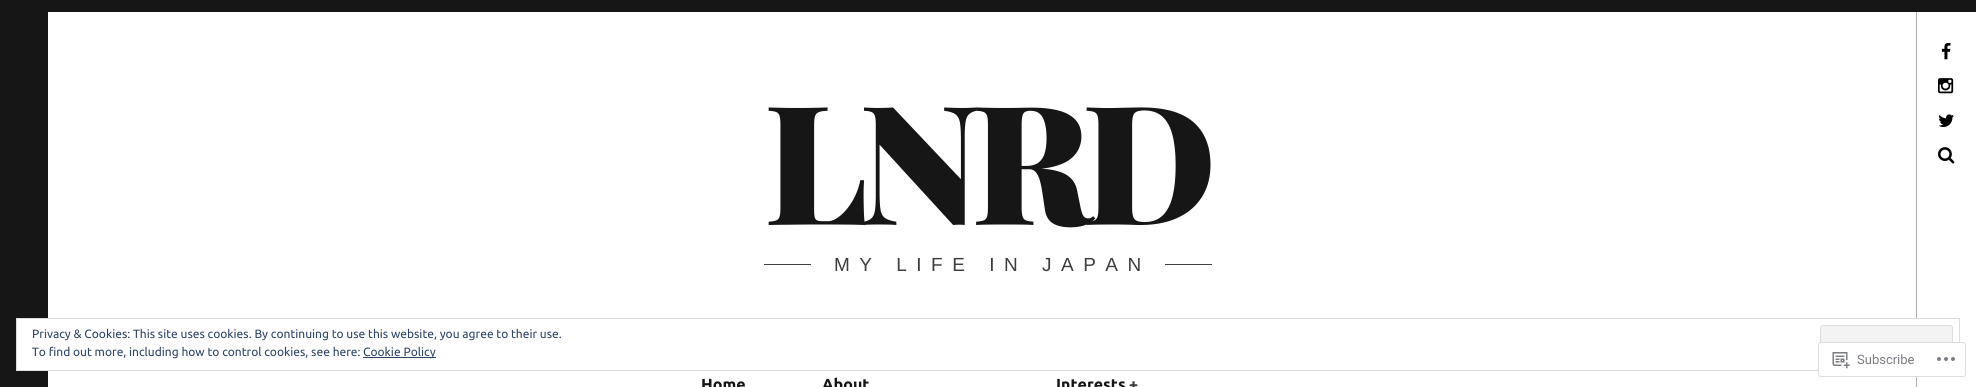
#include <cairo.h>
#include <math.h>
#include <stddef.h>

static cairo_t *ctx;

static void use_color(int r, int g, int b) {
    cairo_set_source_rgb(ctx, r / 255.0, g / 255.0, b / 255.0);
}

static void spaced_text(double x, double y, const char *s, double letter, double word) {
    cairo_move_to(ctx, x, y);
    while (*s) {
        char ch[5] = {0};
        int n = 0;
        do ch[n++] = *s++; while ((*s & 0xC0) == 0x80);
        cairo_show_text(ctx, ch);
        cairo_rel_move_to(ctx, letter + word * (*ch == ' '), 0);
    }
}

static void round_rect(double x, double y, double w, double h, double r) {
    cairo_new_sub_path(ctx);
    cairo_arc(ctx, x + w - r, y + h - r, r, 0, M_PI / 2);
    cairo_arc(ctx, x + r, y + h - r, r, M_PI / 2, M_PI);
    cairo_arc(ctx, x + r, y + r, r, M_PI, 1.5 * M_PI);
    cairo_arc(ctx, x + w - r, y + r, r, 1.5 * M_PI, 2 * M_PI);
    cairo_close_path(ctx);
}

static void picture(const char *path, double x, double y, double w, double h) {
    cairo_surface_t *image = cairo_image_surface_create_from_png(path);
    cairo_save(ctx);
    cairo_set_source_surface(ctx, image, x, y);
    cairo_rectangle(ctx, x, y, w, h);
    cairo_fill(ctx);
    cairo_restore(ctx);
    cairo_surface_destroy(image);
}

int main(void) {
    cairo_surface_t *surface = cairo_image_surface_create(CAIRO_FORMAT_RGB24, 1976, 387);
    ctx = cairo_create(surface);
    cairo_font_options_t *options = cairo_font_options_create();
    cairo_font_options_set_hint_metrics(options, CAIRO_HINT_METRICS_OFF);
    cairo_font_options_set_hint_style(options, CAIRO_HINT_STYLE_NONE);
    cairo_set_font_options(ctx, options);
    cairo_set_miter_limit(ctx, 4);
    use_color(255, 255, 255);
    cairo_paint(ctx);
    use_color(23, 22, 23);
    cairo_rectangle(ctx, 0, 0, 48, 387);
    cairo_fill(ctx);
    cairo_rectangle(ctx, 48, 0, 1928, 12);
    cairo_fill(ctx);
    use_color(175, 175, 175);
    cairo_rectangle(ctx, 1916, 12, 1, 375);
    cairo_fill(ctx);
    use_color(255, 255, 255);
    cairo_rectangle(ctx, 17, 319, 1900, 51);
    cairo_fill(ctx);
    cairo_rectangle(ctx, 16.5, 318.5, 1943, 52);
    use_color(222, 222, 222);
    cairo_set_line_width(ctx, 1);
    cairo_stroke(ctx);
    cairo_select_font_face(ctx, "Ubuntu", CAIRO_FONT_SLANT_NORMAL, CAIRO_FONT_WEIGHT_NORMAL);
    cairo_set_font_size(ctx, 12);
    use_color(46, 68, 103);
    cairo_move_to(ctx, 32, 338);
    cairo_show_text(ctx, "Privacy & Cookies: This site uses cookies. By continuing to use this website, you agree to their use.");
    use_color(243, 243, 243);
    round_rect(1820.5, 325.5, 132, 38, 2.5);
    cairo_fill_preserve(ctx);
    use_color(222, 222, 222);
    cairo_stroke(ctx);
    use_color(46, 68, 103);
    cairo_move_to(ctx, 32, 356);
    cairo_show_text(ctx, "To find out more, including how to control cookies, see here:");
    cairo_rectangle(ctx, 363, 357, 73, 1);
    cairo_fill(ctx);
    cairo_move_to(ctx, 363, 356);
    cairo_show_text(ctx, "Cookie Policy");
    cairo_select_font_face(ctx, "Playfair Display Black", CAIRO_FONT_SLANT_NORMAL, CAIRO_FONT_WEIGHT_NORMAL);
    cairo_set_font_size(ctx, 166);
    use_color(23, 22, 23);
    spaced_text(764, 225, "LNRD", -9, 0);
    use_color(61, 62, 64);
    cairo_rectangle(ctx, 764, 264, 448, 1);
    cairo_fill(ctx);
    use_color(255, 255, 255);
    cairo_rectangle(ctx, 811, 264, 354, 1);
    cairo_fill(ctx);
    cairo_select_font_face(ctx, "Liberation Sans", CAIRO_FONT_SLANT_NORMAL, CAIRO_FONT_WEIGHT_NORMAL);
    cairo_set_font_size(ctx, 19);
    use_color(61, 62, 64);
    spaced_text(834, 271, "MY LIFE IN JAPAN", 9.5, 0);
    cairo_select_font_face(ctx, "Ubuntu", CAIRO_FONT_SLANT_NORMAL, CAIRO_FONT_WEIGHT_BOLD);
    cairo_set_font_size(ctx, 16);
    use_color(23, 22, 23);
    cairo_move_to(ctx, 701, 390);
    cairo_show_text(ctx, "Home");
    cairo_move_to(ctx, 822, 390);
    cairo_show_text(ctx, "About");
    cairo_move_to(ctx, 1056, 390);
    cairo_show_text(ctx, "Interests");
    use_color(61, 62, 64);
    cairo_move_to(ctx, 1129, 390);
    cairo_show_text(ctx, "+");
    use_color(175, 175, 175);
    cairo_rectangle(ctx, 1960, 347, 4, 1);
    cairo_fill(ctx);
    cairo_set_source_rgba(ctx, 1, 1, 1, 0.98);
    round_rect(1818, 342, 148, 35, 3);
    cairo_fill(ctx);
    round_rect(1818.5, 342.5, 147, 34, 2.5);
    cairo_set_source_rgba(ctx, 0.863, 0.863, 0.871, 0.98);
    cairo_stroke(ctx);
    picture("img1.png", 1832, 352, 18, 17);
    cairo_select_font_face(ctx, "Roboto", CAIRO_FONT_SLANT_NORMAL, CAIRO_FONT_WEIGHT_NORMAL);
    cairo_set_font_size(ctx, 13);
    use_color(123, 127, 132);
    cairo_move_to(ctx, 1857, 364);
    cairo_show_text(ctx, "Subscribe");
    picture("img2.png", 1937, 357, 18, 4);
    picture("img3.png", 1941, 42, 10, 18);
    picture("img4.png", 1938, 78, 16, 16);
    picture("img5.png", 1938, 114, 16, 13);
    picture("img6.png", 1938, 147, 17, 17);
    cairo_surface_write_to_png(surface, "result.png");
    cairo_font_options_destroy(options);
    cairo_destroy(ctx);
    cairo_surface_destroy(surface);
    return 0;
}
